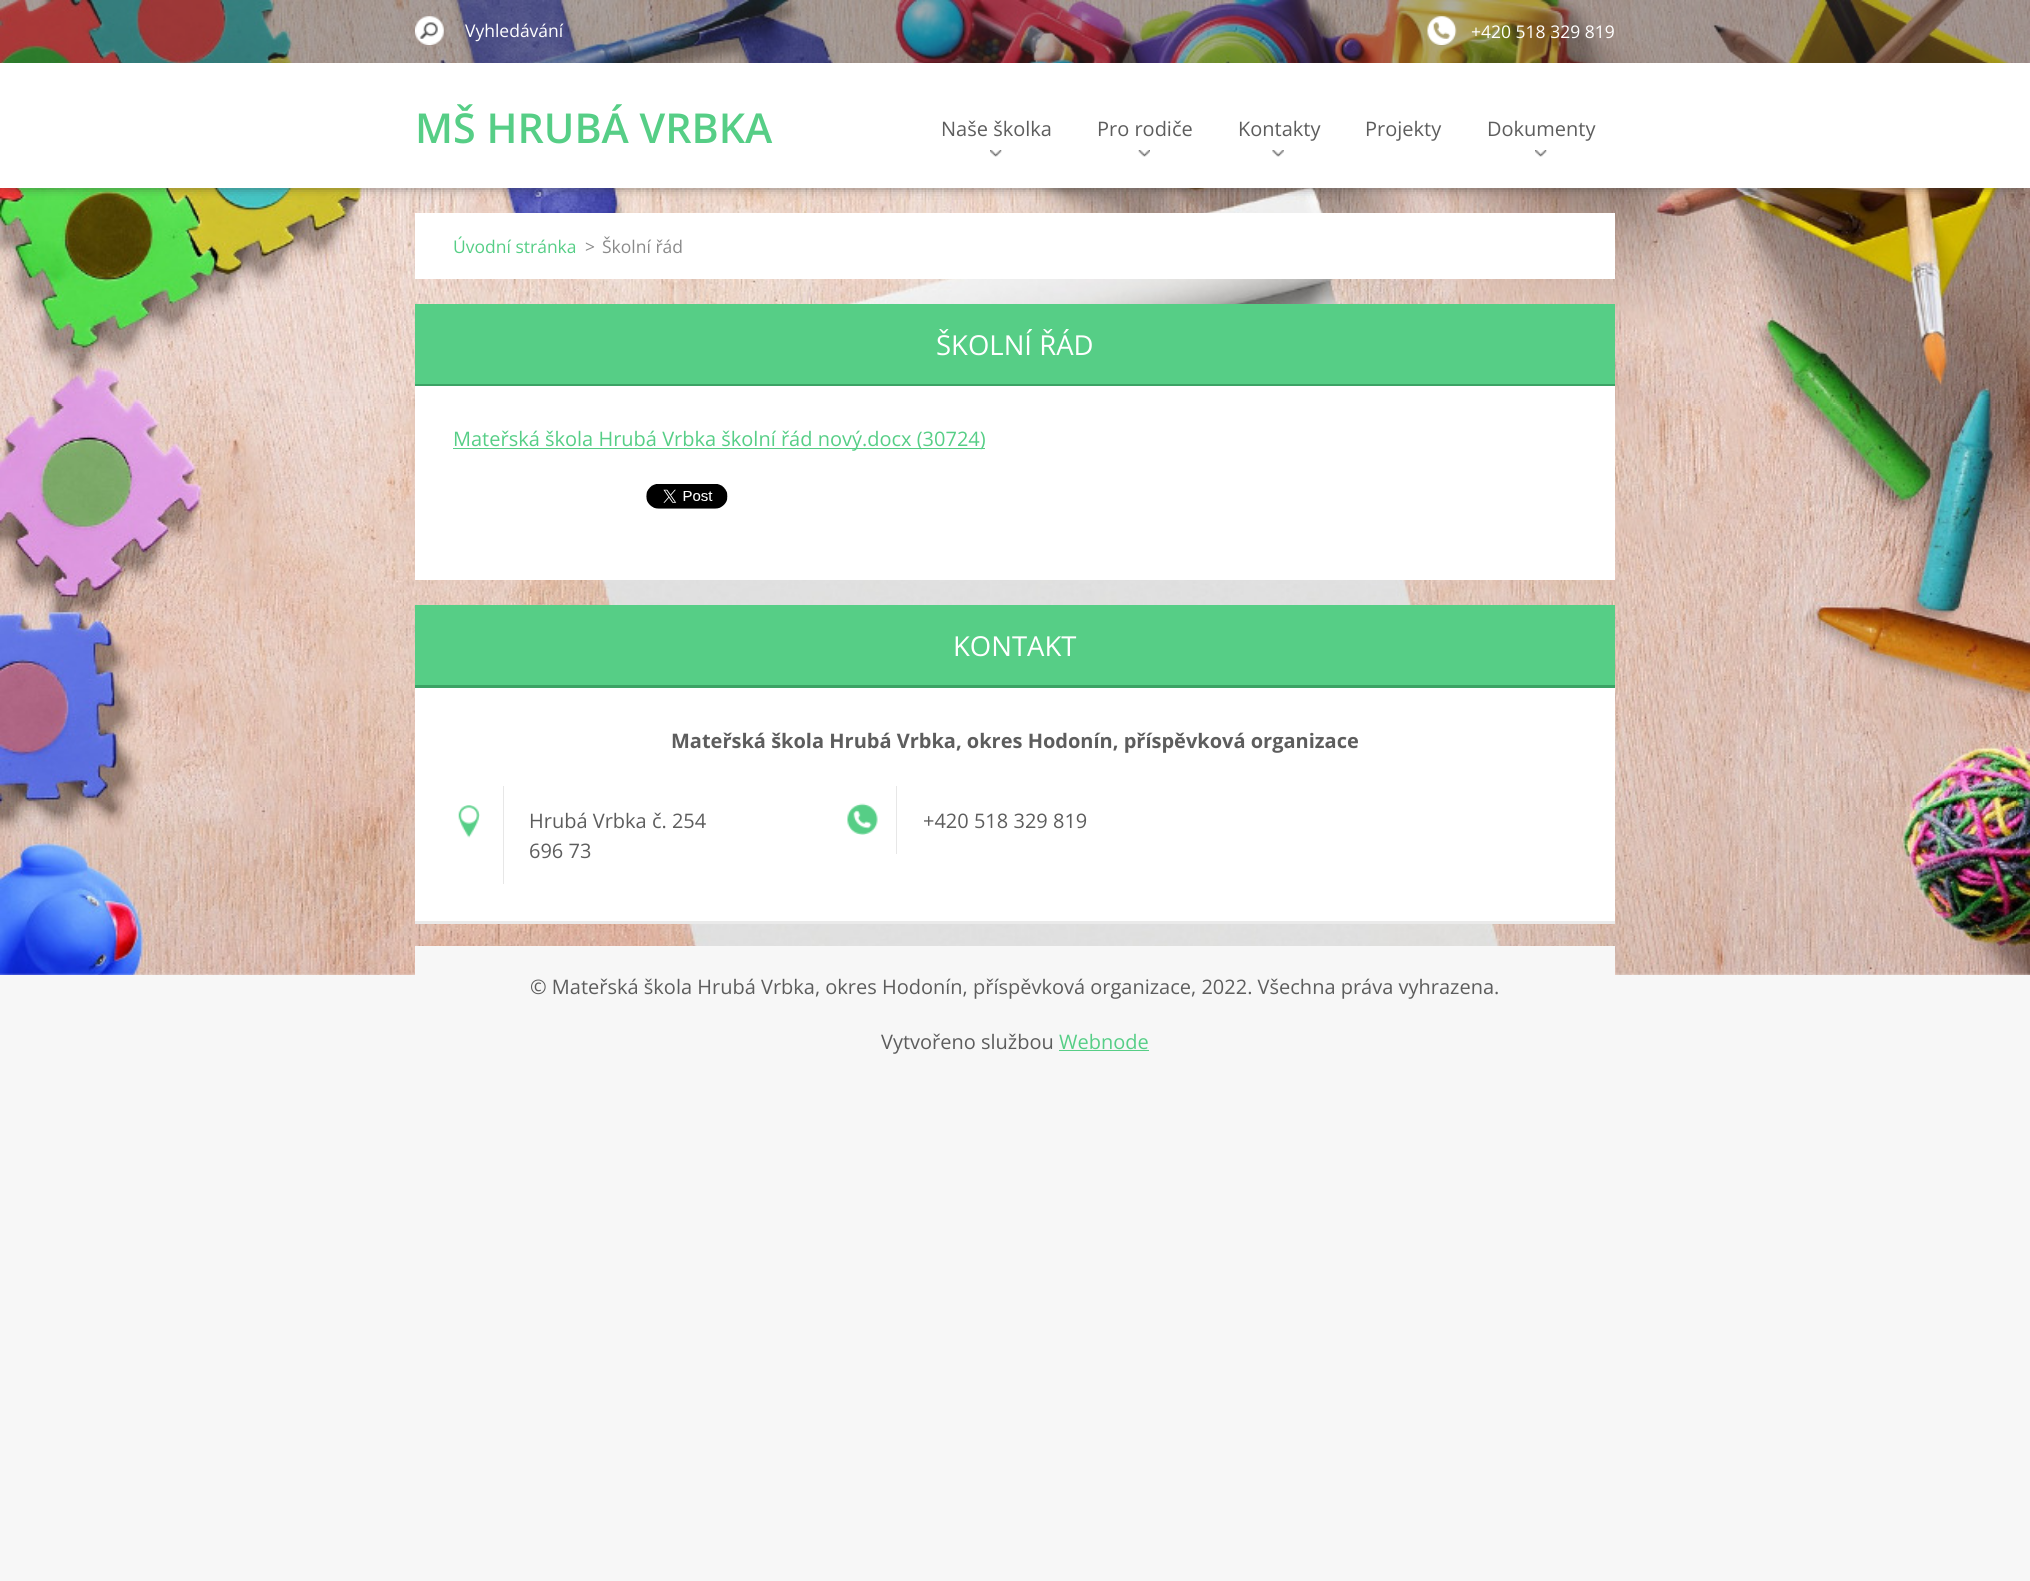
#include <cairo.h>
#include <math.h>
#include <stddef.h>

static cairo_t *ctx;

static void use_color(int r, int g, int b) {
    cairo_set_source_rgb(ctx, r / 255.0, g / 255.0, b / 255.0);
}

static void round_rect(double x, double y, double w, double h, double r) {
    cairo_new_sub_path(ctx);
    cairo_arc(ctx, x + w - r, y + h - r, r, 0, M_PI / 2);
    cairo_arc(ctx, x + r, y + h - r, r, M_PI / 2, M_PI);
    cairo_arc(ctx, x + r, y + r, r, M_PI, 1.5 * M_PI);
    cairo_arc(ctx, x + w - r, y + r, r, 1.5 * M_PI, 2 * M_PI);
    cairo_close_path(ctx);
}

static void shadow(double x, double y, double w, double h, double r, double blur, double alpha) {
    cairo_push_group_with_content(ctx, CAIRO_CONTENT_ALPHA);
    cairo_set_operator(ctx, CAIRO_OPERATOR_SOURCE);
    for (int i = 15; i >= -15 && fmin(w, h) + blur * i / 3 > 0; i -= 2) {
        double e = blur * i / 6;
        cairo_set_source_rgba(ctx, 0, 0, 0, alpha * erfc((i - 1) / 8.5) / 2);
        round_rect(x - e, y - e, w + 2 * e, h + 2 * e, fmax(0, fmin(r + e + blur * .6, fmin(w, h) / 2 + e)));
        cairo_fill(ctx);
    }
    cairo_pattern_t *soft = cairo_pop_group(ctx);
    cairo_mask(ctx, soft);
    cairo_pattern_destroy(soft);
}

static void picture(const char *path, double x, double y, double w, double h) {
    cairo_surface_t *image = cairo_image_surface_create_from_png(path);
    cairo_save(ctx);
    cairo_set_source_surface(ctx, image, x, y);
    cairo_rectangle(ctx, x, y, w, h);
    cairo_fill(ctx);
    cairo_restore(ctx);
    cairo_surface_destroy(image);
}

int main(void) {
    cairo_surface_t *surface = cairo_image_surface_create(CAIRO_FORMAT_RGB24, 2030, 1581);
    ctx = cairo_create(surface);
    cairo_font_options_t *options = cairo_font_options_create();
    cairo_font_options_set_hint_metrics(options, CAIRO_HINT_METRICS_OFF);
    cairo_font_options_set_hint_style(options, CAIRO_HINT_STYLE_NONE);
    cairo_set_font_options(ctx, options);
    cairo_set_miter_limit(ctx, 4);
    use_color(247, 247, 247);
    cairo_paint(ctx);
    picture("img1.png", 0, 0, 2030, 975);
    cairo_set_source_rgba(ctx, 0.208, 0.208, 0.208, 0.4);
    cairo_rectangle(ctx, 0, 0, 2030, 63);
    cairo_fill(ctx);
    picture("img2.png", 415, 16, 29, 29);
    cairo_select_font_face(ctx, "Open Sans", CAIRO_FONT_SLANT_NORMAL, CAIRO_FONT_WEIGHT_NORMAL);
    cairo_set_font_size(ctx, 17.5);
    use_color(255, 255, 255);
    cairo_move_to(ctx, 465, 37);
    cairo_show_text(ctx, "Vyhledávání");
    picture("img3.png", 1427, 16, 30, 29);
    cairo_move_to(ctx, 1471, 38);
    cairo_show_text(ctx, "+420 518 329 819");
    use_color(53, 53, 53);
    shadow(8, 75, 2015, 110, 0, 6, 1);
    use_color(255, 255, 255);
    cairo_rectangle(ctx, 0, 63, 2030, 125);
    cairo_fill(ctx);
    cairo_select_font_face(ctx, "Open Sans SemiBold", CAIRO_FONT_SLANT_NORMAL, CAIRO_FONT_WEIGHT_NORMAL);
    cairo_set_font_size(ctx, 41.25);
    use_color(86, 206, 134);
    cairo_move_to(ctx, 415, 143);
    cairo_show_text(ctx, "MŠ HRUBÁ VRBKA");
    cairo_select_font_face(ctx, "Open Sans", CAIRO_FONT_SLANT_NORMAL, CAIRO_FONT_WEIGHT_NORMAL);
    cairo_set_font_size(ctx, 20);
    use_color(93, 93, 93);
    cairo_move_to(ctx, 941, 136);
    cairo_show_text(ctx, "Naše školka");
    picture("img4.png", 990, 150, 12, 7);
    cairo_move_to(ctx, 1097, 136);
    cairo_show_text(ctx, "Pro rodiče");
    picture("img5.png", 1138, 150, 12, 7);
    cairo_move_to(ctx, 1238, 136);
    cairo_show_text(ctx, "Kontakty");
    picture("img6.png", 1272, 150, 12, 7);
    cairo_move_to(ctx, 1365, 136);
    cairo_show_text(ctx, "Projekty");
    cairo_move_to(ctx, 1487, 136);
    cairo_show_text(ctx, "Dokumenty");
    picture("img4.png", 1535, 150, 12, 7);
    use_color(255, 255, 255);
    cairo_rectangle(ctx, 415, 213, 1200, 66);
    cairo_fill(ctx);
    cairo_set_font_size(ctx, 17.5);
    use_color(86, 206, 134);
    cairo_move_to(ctx, 453, 253);
    cairo_show_text(ctx, "Úvodní stránka");
    use_color(138, 138, 138);
    cairo_move_to(ctx, 585, 253);
    cairo_show_text(ctx, ">");
    cairo_move_to(ctx, 602, 253);
    cairo_show_text(ctx, "Školní řád");
    use_color(255, 255, 255);
    cairo_rectangle(ctx, 415, 386, 1200, 194);
    cairo_fill(ctx);
    use_color(86, 206, 134);
    cairo_rectangle(ctx, 415, 304, 1200, 80);
    cairo_fill(ctx);
    use_color(60, 162, 101);
    cairo_rectangle(ctx, 415, 384, 1200, 2);
    cairo_fill(ctx);
    cairo_set_font_size(ctx, 27.5);
    use_color(255, 255, 255);
    cairo_move_to(ctx, 936, 355);
    cairo_show_text(ctx, "ŠKOLNÍ ŘÁD");
    use_color(86, 206, 134);
    cairo_rectangle(ctx, 453, 448, 532, 1);
    cairo_fill(ctx);
    cairo_set_font_size(ctx, 20);
    cairo_move_to(ctx, 453, 446);
    cairo_show_text(ctx, "Mateřská škola Hrubá Vrbka školní řád nový.docx (30724)");
    picture("img7.png", 646, 484, 82, 25);
    use_color(234, 234, 234);
    cairo_rectangle(ctx, 415, 921, 1200, 3);
    cairo_fill(ctx);
    use_color(255, 255, 255);
    cairo_rectangle(ctx, 415, 688, 1200, 233);
    cairo_fill(ctx);
    use_color(86, 206, 134);
    cairo_rectangle(ctx, 415, 605, 1200, 80);
    cairo_fill(ctx);
    use_color(60, 162, 101);
    cairo_rectangle(ctx, 415, 685, 1200, 3);
    cairo_fill(ctx);
    cairo_set_font_size(ctx, 27.5);
    use_color(255, 255, 255);
    cairo_move_to(ctx, 953, 656);
    cairo_show_text(ctx, "KONTAKT");
    cairo_select_font_face(ctx, "Open Sans", CAIRO_FONT_SLANT_NORMAL, CAIRO_FONT_WEIGHT_BOLD);
    cairo_set_font_size(ctx, 20);
    use_color(93, 93, 93);
    cairo_move_to(ctx, 671, 748);
    cairo_show_text(ctx, "Mateřská škola Hrubá Vrbka, okres Hodonín, příspěvková organizace");
    picture("img8.png", 458, 805, 22, 33);
    use_color(231, 231, 231);
    cairo_rectangle(ctx, 503, 786, 1, 98);
    cairo_fill(ctx);
    cairo_select_font_face(ctx, "Open Sans", CAIRO_FONT_SLANT_NORMAL, CAIRO_FONT_WEIGHT_NORMAL);
    use_color(93, 93, 93);
    cairo_move_to(ctx, 529, 828);
    cairo_show_text(ctx, "Hrubá Vrbka č. 254");
    cairo_move_to(ctx, 529, 858);
    cairo_show_text(ctx, "696 73");
    picture("img9.png", 847, 803, 31, 32);
    use_color(231, 231, 231);
    cairo_rectangle(ctx, 896, 786, 1, 68);
    cairo_fill(ctx);
    use_color(93, 93, 93);
    cairo_move_to(ctx, 923, 828);
    cairo_show_text(ctx, "+420 518 329 819");
    use_color(247, 247, 247);
    cairo_rectangle(ctx, 415, 946, 1200, 29);
    cairo_fill(ctx);
    use_color(93, 93, 93);
    cairo_move_to(ctx, 530, 994);
    cairo_show_text(ctx, "© Mateřská škola Hrubá Vrbka, okres Hodonín, příspěvková organizace, 2022. Všechna práva vyhrazena.");
    cairo_move_to(ctx, 881, 1049);
    cairo_show_text(ctx, "Vytvořeno službou");
    use_color(86, 206, 134);
    cairo_move_to(ctx, 1059, 1049);
    cairo_show_text(ctx, "Webnode");
    cairo_rectangle(ctx, 1059, 1050, 90, 1);
    cairo_fill(ctx);
    cairo_surface_write_to_png(surface, "result.png");
    cairo_font_options_destroy(options);
    cairo_destroy(ctx);
    cairo_surface_destroy(surface);
    return 0;
}
